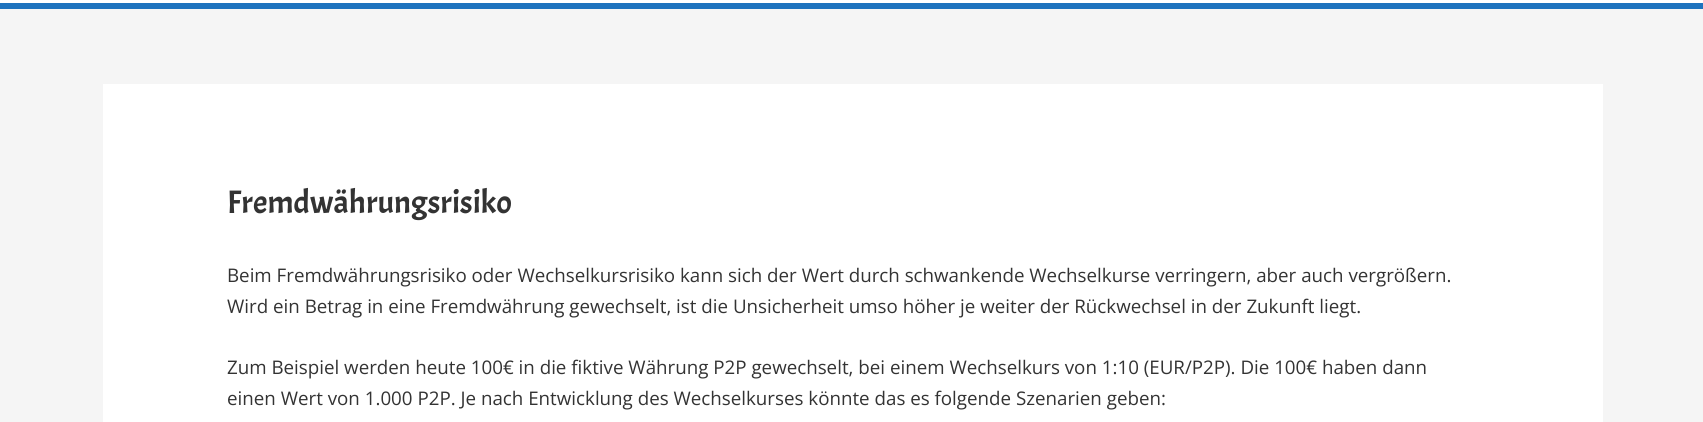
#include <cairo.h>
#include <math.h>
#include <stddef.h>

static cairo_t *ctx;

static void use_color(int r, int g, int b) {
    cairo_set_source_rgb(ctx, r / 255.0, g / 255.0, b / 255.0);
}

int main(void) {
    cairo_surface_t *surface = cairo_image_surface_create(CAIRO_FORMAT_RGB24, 1703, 422);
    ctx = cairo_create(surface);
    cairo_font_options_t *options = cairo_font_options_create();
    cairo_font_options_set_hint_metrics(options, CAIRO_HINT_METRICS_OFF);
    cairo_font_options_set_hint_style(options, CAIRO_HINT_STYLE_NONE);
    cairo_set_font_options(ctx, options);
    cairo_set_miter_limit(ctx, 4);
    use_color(245, 245, 245);
    cairo_paint(ctx);
    use_color(255, 255, 255);
    cairo_rectangle(ctx, 0, 0, 1703, 3);
    cairo_fill(ctx);
    use_color(30, 115, 190);
    cairo_rectangle(ctx, 0, 3, 1703, 6);
    cairo_fill(ctx);
    use_color(255, 255, 255);
    cairo_rectangle(ctx, 103, 84, 1500, 338);
    cairo_fill(ctx);
    cairo_select_font_face(ctx, "Acme", CAIRO_FONT_SLANT_NORMAL, CAIRO_FONT_WEIGHT_NORMAL);
    cairo_set_font_size(ctx, 32.5);
    use_color(51, 51, 51);
    cairo_move_to(ctx, 227, 213);
    cairo_show_text(ctx, "Fremdwährungsrisiko");
    cairo_select_font_face(ctx, "Open Sans", CAIRO_FONT_SLANT_NORMAL, CAIRO_FONT_WEIGHT_NORMAL);
    cairo_set_font_size(ctx, 18.75);
    cairo_move_to(ctx, 227, 282);
    cairo_show_text(ctx, "Beim Fremdwährungsrisiko oder Wechselkursrisiko kann sich der Wert durch schwankende Wechselkurse verringern, aber auch vergrößern.");
    cairo_move_to(ctx, 227, 313);
    cairo_show_text(ctx, "Wird ein Betrag in eine Fremdwährung gewechselt, ist die Unsicherheit umso höher je weiter der Rückwechsel in der Zukunft liegt.");
    cairo_move_to(ctx, 227, 374);
    cairo_show_text(ctx, "Zum Beispiel werden heute 100€ in die fiktive Währung P2P gewechselt, bei einem Wechselkurs von 1:10 (EUR/P2P). Die 100€ haben dann");
    cairo_move_to(ctx, 227, 405);
    cairo_show_text(ctx, "einen Wert von 1.000 P2P. Je nach Entwicklung des Wechselkurses könnte das es folgende Szenarien geben:");
    cairo_surface_write_to_png(surface, "result.png");
    cairo_font_options_destroy(options);
    cairo_destroy(ctx);
    cairo_surface_destroy(surface);
    return 0;
}
